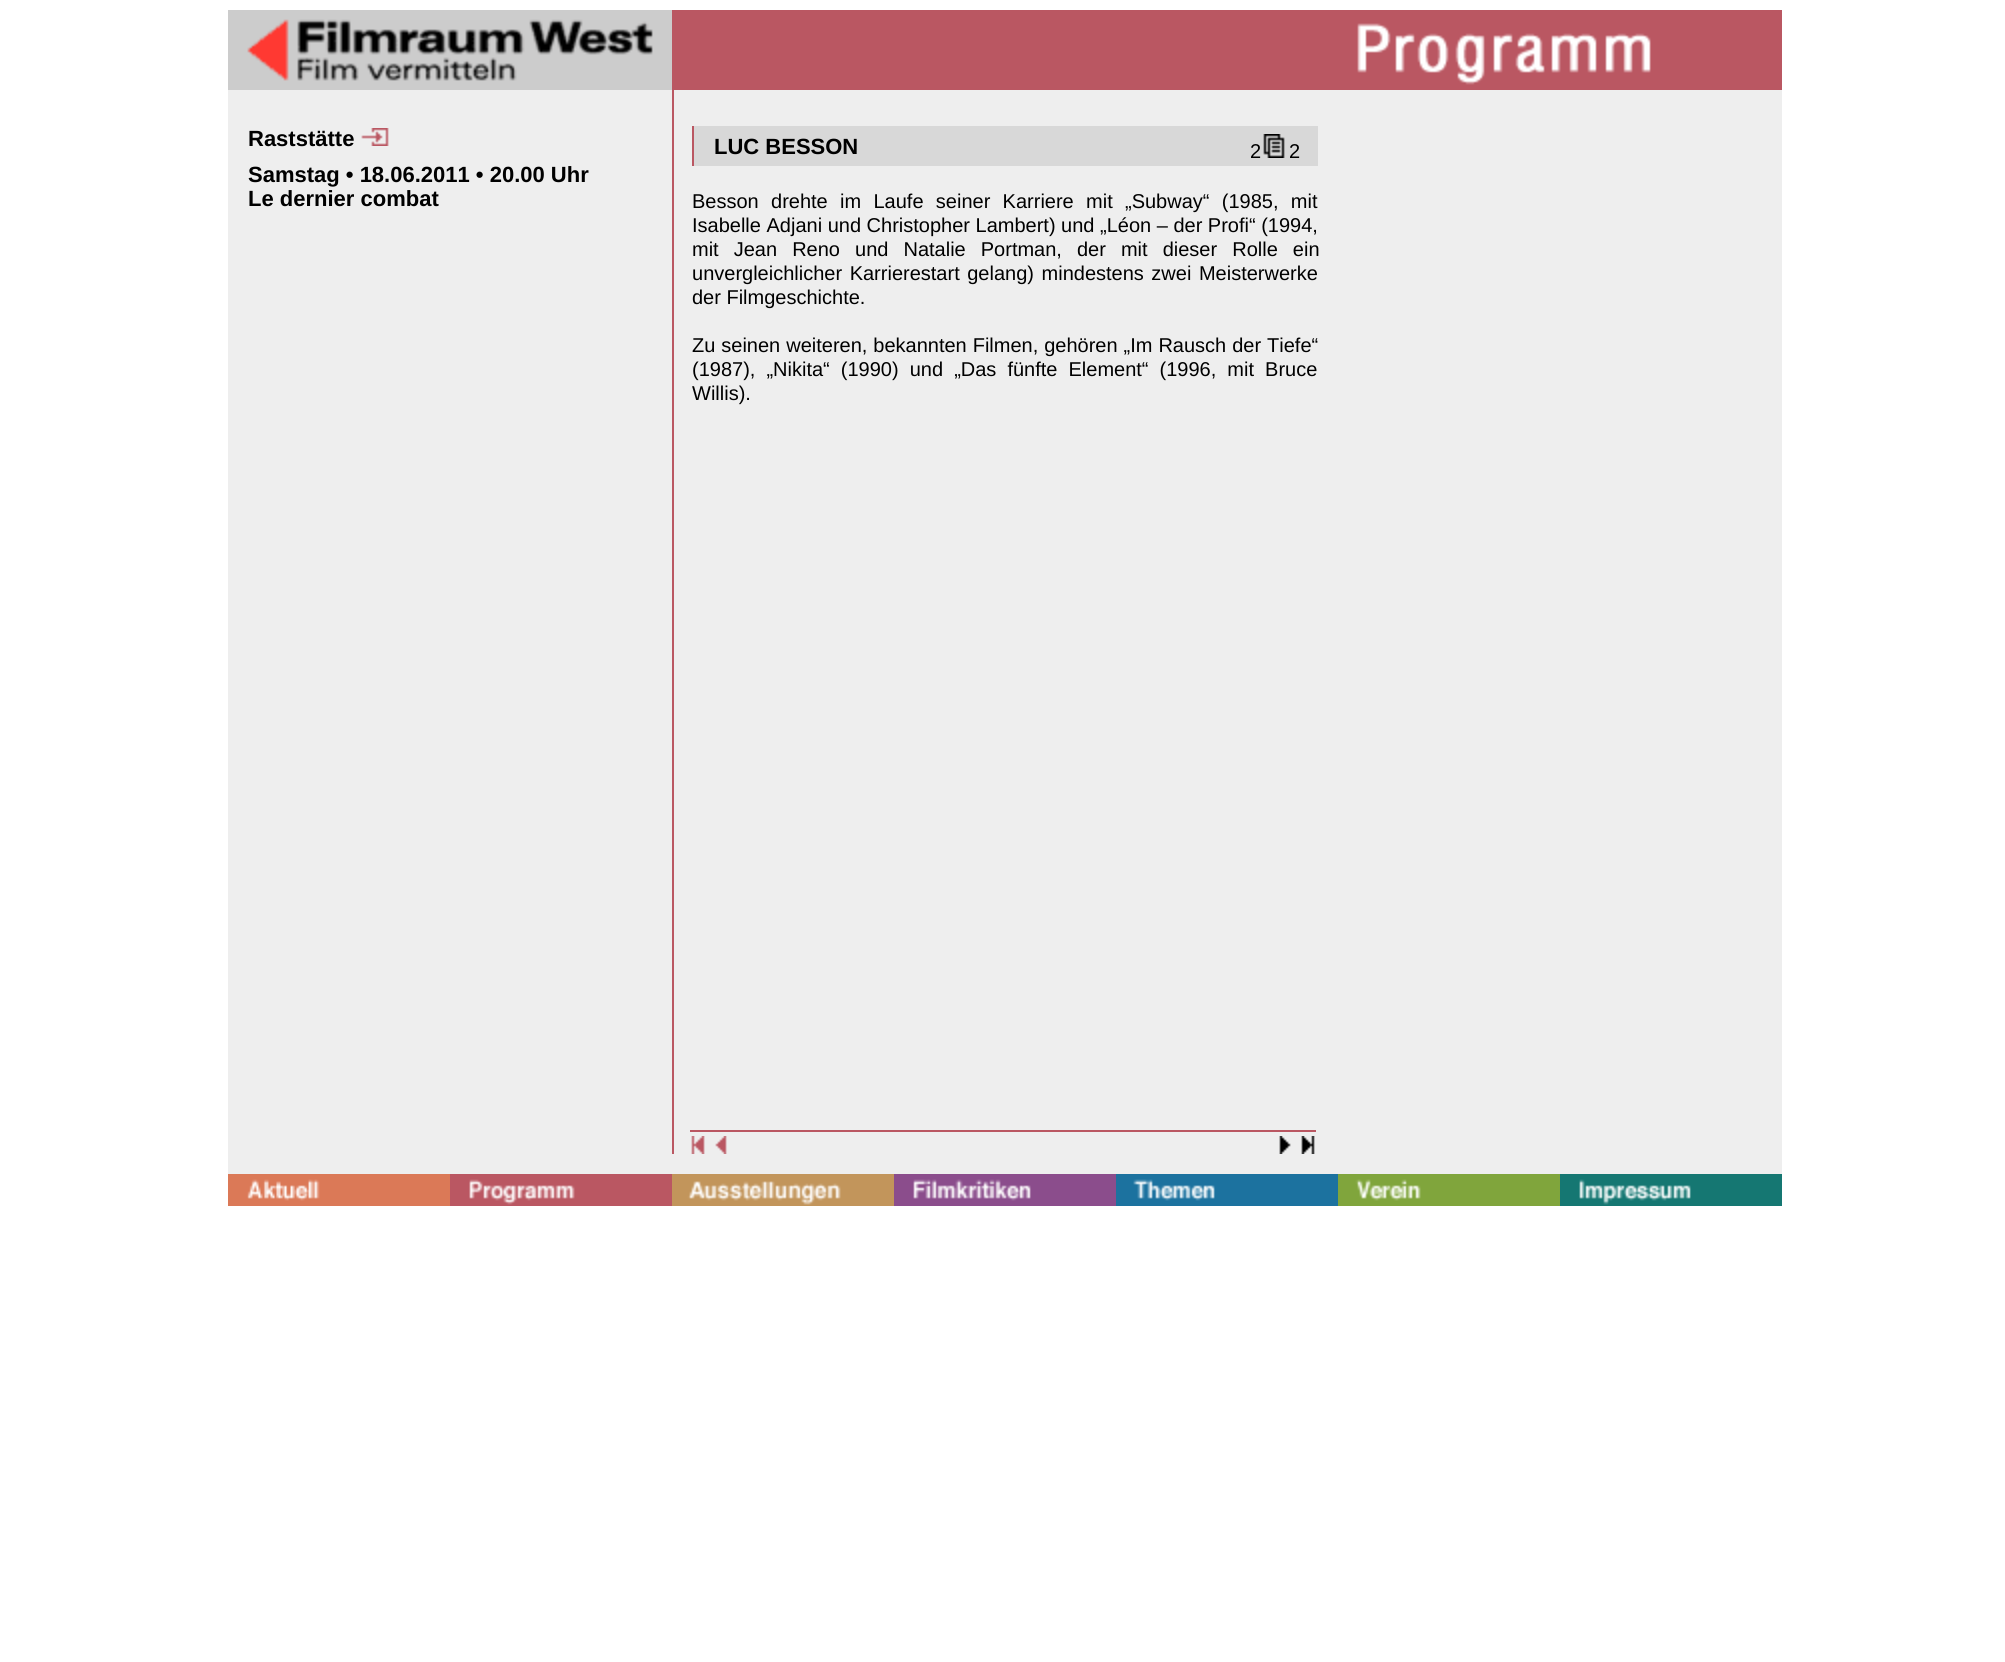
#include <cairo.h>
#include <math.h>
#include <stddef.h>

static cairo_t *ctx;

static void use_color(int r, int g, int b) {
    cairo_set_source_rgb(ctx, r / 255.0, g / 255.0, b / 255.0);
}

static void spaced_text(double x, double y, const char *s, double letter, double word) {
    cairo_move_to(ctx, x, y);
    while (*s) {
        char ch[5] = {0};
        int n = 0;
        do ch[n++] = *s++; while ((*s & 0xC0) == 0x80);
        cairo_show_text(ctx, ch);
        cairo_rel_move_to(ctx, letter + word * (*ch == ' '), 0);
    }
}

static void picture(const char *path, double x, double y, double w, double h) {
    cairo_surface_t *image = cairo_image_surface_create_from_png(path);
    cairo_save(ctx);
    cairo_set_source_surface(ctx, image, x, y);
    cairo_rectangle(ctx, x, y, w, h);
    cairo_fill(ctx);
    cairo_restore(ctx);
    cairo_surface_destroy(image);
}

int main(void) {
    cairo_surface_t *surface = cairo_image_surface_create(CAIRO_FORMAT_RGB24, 2005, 1662);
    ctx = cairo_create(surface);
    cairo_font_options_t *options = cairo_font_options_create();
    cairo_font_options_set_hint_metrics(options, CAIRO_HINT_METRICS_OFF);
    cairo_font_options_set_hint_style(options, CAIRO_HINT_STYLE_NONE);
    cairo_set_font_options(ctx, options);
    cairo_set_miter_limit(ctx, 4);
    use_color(255, 255, 255);
    cairo_paint(ctx);
    use_color(238, 238, 238);
    cairo_rectangle(ctx, 228, 90, 1554, 1084);
    cairo_fill(ctx);
    picture("img1.png", 228, 10, 444, 80);
    use_color(186, 87, 98);
    cairo_rectangle(ctx, 672, 10, 1110, 80);
    cairo_fill(ctx);
    picture("img2.png", 1357, 23, 294, 62);
    cairo_rectangle(ctx, 672, 90, 2, 1064);
    cairo_fill(ctx);
    cairo_select_font_face(ctx, "Liberation Sans", CAIRO_FONT_SLANT_NORMAL, CAIRO_FONT_WEIGHT_BOLD);
    cairo_set_font_size(ctx, 22);
    use_color(0, 0, 0);
    cairo_move_to(ctx, 248, 146);
    cairo_show_text(ctx, "Raststätte");
    picture("img3.png", 361, 128, 28, 18);
    cairo_move_to(ctx, 248, 182);
    cairo_show_text(ctx, "Samstag • 18.06.2011 • 20.00 Uhr");
    cairo_move_to(ctx, 248, 206);
    cairo_show_text(ctx, "Le dernier combat");
    use_color(216, 216, 216);
    cairo_rectangle(ctx, 694, 126, 624, 40);
    cairo_fill(ctx);
    use_color(186, 87, 98);
    cairo_rectangle(ctx, 692, 126, 2, 40);
    cairo_fill(ctx);
    use_color(0, 0, 0);
    cairo_move_to(ctx, 714, 154);
    cairo_show_text(ctx, "LUC BESSON");
    cairo_select_font_face(ctx, "Liberation Sans", CAIRO_FONT_SLANT_NORMAL, CAIRO_FONT_WEIGHT_NORMAL);
    cairo_set_font_size(ctx, 20);
    cairo_move_to(ctx, 1250, 158);
    cairo_show_text(ctx, "2");
    picture("img4.png", 1263, 134, 22, 24);
    cairo_move_to(ctx, 1289, 158);
    cairo_show_text(ctx, "2");
    spaced_text(692, 208, "Besson drehte im Laufe seiner Karriere mit „Subway“ (1985, mit", 0, 6.75);
    cairo_move_to(ctx, 692, 232);
    cairo_show_text(ctx, "Isabelle Adjani und Christopher Lambert) und „Léon – der Profi“ (1994,");
    spaced_text(692, 256, "mit Jean Reno und Natalie Portman, der mit dieser Rolle ein", 0, 9.5);
    spaced_text(692, 280, "unvergleichlicher Karrierestart gelang) mindestens zwei Meisterwerke", 0, 2);
    cairo_move_to(ctx, 692, 304);
    cairo_show_text(ctx, "der Filmgeschichte.");
    spaced_text(692, 352, "Zu seinen weiteren, bekannten Filmen, gehören „Im Rausch der Tiefe“", 0, 0.4);
    spaced_text(692, 376, "(1987), „Nikita“ (1990) und „Das fünfte Element“ (1996, mit Bruce", 0, 5.5);
    cairo_move_to(ctx, 692, 400);
    cairo_show_text(ctx, "Willis).");
    use_color(186, 87, 98);
    cairo_rectangle(ctx, 690, 1130, 626, 2);
    cairo_fill(ctx);
    picture("img5.png", 691, 1136, 14, 18);
    picture("img6.png", 715, 1136, 12, 18);
    picture("img7.png", 1279, 1136, 12, 18);
    picture("img8.png", 1301, 1136, 14, 18);
    picture("img9.png", 228, 1174, 222, 32);
    picture("img10.png", 450, 1174, 222, 32);
    picture("img11.png", 672, 1174, 222, 32);
    picture("img12.png", 894, 1174, 222, 32);
    picture("img13.png", 1116, 1174, 222, 32);
    picture("img14.png", 1338, 1174, 222, 32);
    picture("img15.png", 1560, 1174, 222, 32);
    cairo_surface_write_to_png(surface, "result.png");
    cairo_font_options_destroy(options);
    cairo_destroy(ctx);
    cairo_surface_destroy(surface);
    return 0;
}
